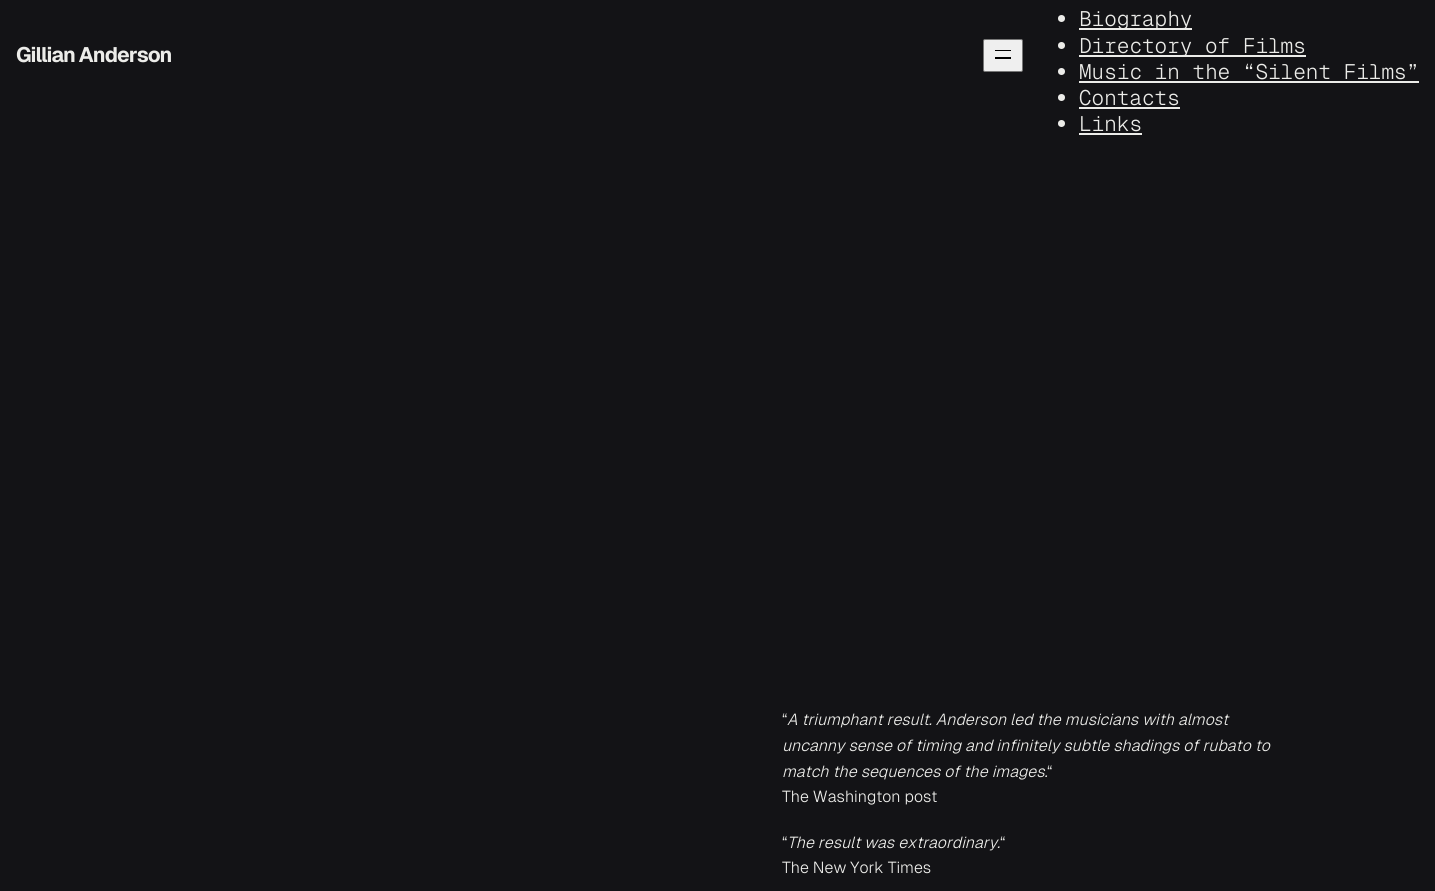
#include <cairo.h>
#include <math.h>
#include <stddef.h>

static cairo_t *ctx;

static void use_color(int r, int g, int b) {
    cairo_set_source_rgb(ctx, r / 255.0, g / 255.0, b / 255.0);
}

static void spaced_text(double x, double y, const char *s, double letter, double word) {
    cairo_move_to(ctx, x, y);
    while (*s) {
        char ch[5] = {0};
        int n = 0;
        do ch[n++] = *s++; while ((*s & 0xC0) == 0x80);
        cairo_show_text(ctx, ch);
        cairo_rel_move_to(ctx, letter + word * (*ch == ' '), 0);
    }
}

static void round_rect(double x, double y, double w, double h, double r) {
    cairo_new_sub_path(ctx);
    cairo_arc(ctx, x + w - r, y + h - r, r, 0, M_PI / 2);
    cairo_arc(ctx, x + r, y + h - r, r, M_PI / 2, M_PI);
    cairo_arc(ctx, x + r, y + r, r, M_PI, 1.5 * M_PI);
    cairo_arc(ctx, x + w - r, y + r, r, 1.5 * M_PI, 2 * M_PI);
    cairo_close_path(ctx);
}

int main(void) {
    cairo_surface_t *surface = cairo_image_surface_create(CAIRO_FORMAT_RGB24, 1435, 891);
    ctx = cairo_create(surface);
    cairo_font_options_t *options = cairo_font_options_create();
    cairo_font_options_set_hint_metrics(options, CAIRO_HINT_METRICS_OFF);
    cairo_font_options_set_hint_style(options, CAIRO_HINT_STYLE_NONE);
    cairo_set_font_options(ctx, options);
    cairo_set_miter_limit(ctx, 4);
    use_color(19, 19, 22);
    cairo_paint(ctx);
    cairo_select_font_face(ctx, "Geist", CAIRO_FONT_SLANT_NORMAL, CAIRO_FONT_WEIGHT_BOLD);
    cairo_set_font_size(ctx, 21);
    use_color(236, 236, 233);
    spaced_text(16, 62, "Gillian Anderson", -1, 0);
    use_color(239, 239, 239);
    round_rect(983.5, 39.5, 39, 32, 1.5);
    cairo_fill_preserve(ctx);
    use_color(118, 118, 118);
    cairo_set_line_width(ctx, 1);
    cairo_stroke(ctx);
    use_color(0, 0, 0);
    cairo_rectangle(ctx, 995, 50, 16, 1);
    cairo_fill(ctx);
    cairo_rectangle(ctx, 995, 57, 16, 2);
    cairo_fill(ctx);
    use_color(236, 236, 233);
    cairo_arc(ctx, 1061.5, 18.5, 3.5, 0, 2 * M_PI);
    cairo_fill(ctx);
    cairo_rectangle(ctx, 1079, 28, 113, 2);
    cairo_fill(ctx);
    cairo_select_font_face(ctx, "Geist Mono Light", CAIRO_FONT_SLANT_NORMAL, CAIRO_FONT_WEIGHT_NORMAL);
    cairo_move_to(ctx, 1079, 26);
    cairo_show_text(ctx, "Biography");
    cairo_new_path(ctx);
    cairo_arc(ctx, 1061.5, 45.5, 3.5, 0, 2 * M_PI);
    cairo_fill(ctx);
    cairo_rectangle(ctx, 1079, 55, 227, 2);
    cairo_fill(ctx);
    cairo_move_to(ctx, 1079, 53);
    cairo_show_text(ctx, "Directory of Films");
    cairo_new_path(ctx);
    cairo_arc(ctx, 1061.5, 71.5, 3.5, 0, 2 * M_PI);
    cairo_fill(ctx);
    cairo_move_to(ctx, 1079, 79);
    cairo_show_text(ctx, "Music in the “Silent Films”");
    cairo_rectangle(ctx, 1079, 81, 340, 2);
    cairo_fill(ctx);
    cairo_arc(ctx, 1061.5, 97.5, 3.5, 0, 2 * M_PI);
    cairo_fill(ctx);
    cairo_move_to(ctx, 1079, 105);
    cairo_show_text(ctx, "Contacts");
    cairo_rectangle(ctx, 1079, 107, 101, 2);
    cairo_fill(ctx);
    cairo_arc(ctx, 1061.5, 123.5, 3.5, 0, 2 * M_PI);
    cairo_fill(ctx);
    cairo_move_to(ctx, 1079, 131);
    cairo_show_text(ctx, "Links");
    cairo_rectangle(ctx, 1079, 133, 63, 2);
    cairo_fill(ctx);
    cairo_select_font_face(ctx, "Geist Light", CAIRO_FONT_SLANT_NORMAL, CAIRO_FONT_WEIGHT_NORMAL);
    cairo_set_font_size(ctx, 16);
    cairo_move_to(ctx, 782, 725);
    cairo_show_text(ctx, "“");
    cairo_select_font_face(ctx, "Geist Light", CAIRO_FONT_SLANT_ITALIC, CAIRO_FONT_WEIGHT_NORMAL);
    cairo_move_to(ctx, 787, 725);
    cairo_show_text(ctx, "A triumphant result. Anderson led the musicians with almost");
    cairo_move_to(ctx, 782, 751);
    cairo_show_text(ctx, "uncanny sense of timing and infinitely subtle shadings of rubato to");
    cairo_move_to(ctx, 782, 777);
    cairo_show_text(ctx, "match the sequences of the images.");
    cairo_select_font_face(ctx, "Geist Light", CAIRO_FONT_SLANT_NORMAL, CAIRO_FONT_WEIGHT_NORMAL);
    cairo_move_to(ctx, 1047, 777);
    cairo_show_text(ctx, "“");
    cairo_move_to(ctx, 782, 802);
    cairo_show_text(ctx, "The Washington post");
    cairo_move_to(ctx, 782, 848);
    cairo_show_text(ctx, "“");
    cairo_select_font_face(ctx, "Geist Light", CAIRO_FONT_SLANT_ITALIC, CAIRO_FONT_WEIGHT_NORMAL);
    cairo_move_to(ctx, 787, 848);
    cairo_show_text(ctx, "The result was extraordinary.");
    cairo_select_font_face(ctx, "Geist Light", CAIRO_FONT_SLANT_NORMAL, CAIRO_FONT_WEIGHT_NORMAL);
    cairo_move_to(ctx, 1000, 848);
    cairo_show_text(ctx, "“");
    cairo_move_to(ctx, 782, 873);
    cairo_show_text(ctx, "The New York Times");
    cairo_surface_write_to_png(surface, "result.png");
    cairo_font_options_destroy(options);
    cairo_destroy(ctx);
    cairo_surface_destroy(surface);
    return 0;
}
